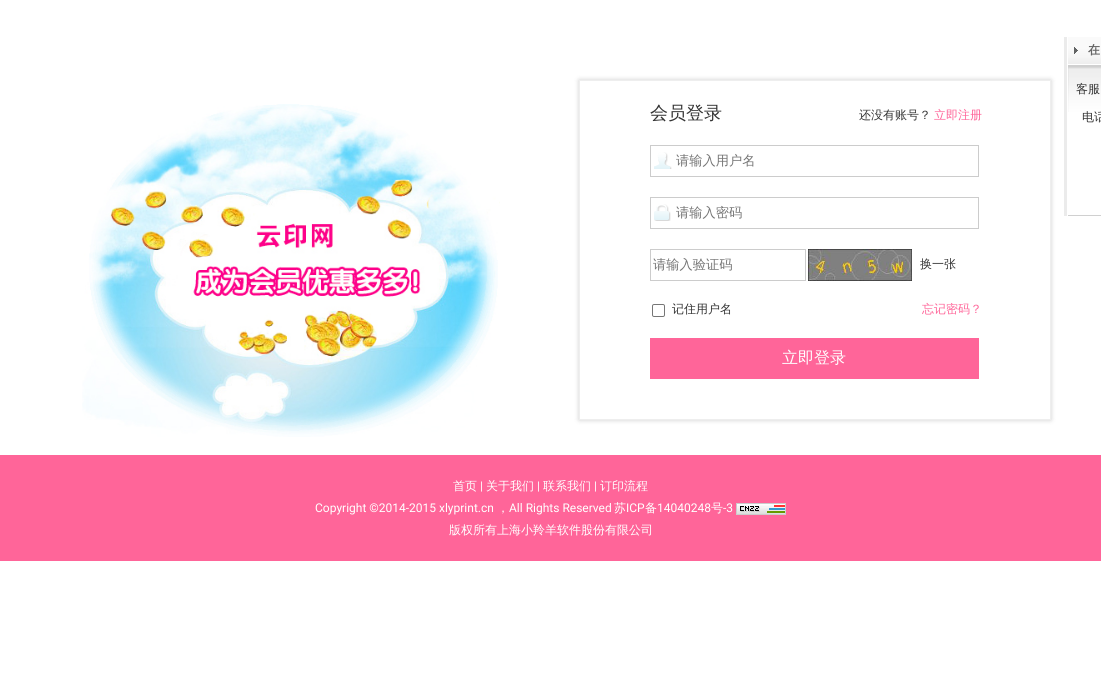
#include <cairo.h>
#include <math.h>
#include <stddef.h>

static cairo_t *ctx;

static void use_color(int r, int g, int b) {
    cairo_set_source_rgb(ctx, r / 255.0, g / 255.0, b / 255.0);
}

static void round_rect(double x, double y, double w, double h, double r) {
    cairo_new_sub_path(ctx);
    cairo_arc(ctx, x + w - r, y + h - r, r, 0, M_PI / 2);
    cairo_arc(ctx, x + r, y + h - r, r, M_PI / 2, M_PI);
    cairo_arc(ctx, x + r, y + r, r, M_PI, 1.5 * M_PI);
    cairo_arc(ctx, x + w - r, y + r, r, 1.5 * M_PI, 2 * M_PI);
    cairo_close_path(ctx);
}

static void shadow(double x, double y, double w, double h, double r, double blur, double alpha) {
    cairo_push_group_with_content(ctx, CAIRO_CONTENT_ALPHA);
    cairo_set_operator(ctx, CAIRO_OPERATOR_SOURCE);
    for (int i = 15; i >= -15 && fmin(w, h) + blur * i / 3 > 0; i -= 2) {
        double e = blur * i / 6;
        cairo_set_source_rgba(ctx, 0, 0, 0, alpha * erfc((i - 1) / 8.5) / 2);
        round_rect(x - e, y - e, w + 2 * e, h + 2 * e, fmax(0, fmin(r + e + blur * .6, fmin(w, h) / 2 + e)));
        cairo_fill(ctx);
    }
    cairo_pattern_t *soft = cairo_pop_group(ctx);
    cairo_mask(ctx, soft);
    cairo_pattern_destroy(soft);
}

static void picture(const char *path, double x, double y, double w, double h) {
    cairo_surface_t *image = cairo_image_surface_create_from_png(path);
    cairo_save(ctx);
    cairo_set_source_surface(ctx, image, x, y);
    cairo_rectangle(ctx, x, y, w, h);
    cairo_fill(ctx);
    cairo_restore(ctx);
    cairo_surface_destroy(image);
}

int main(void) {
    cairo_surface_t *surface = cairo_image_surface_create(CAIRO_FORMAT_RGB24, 1101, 694);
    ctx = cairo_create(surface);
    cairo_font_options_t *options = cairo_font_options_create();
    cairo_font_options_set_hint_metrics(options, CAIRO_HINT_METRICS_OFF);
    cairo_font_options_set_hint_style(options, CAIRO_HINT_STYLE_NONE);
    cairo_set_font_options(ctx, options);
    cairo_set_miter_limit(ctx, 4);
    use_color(255, 255, 255);
    cairo_paint(ctx);
    use_color(235, 235, 235);
    cairo_rectangle(ctx, 1064, 37, 3, 179);
    cairo_fill(ctx);
    picture("img1.png", 1068, 37, 33, 29);
    picture("img2.png", 1074, 47, 4, 7);
    cairo_select_font_face(ctx, "WenQuanYi Zen Hei", CAIRO_FONT_SLANT_NORMAL, CAIRO_FONT_WEIGHT_BOLD);
    cairo_set_font_size(ctx, 12);
    use_color(102, 102, 102);
    cairo_move_to(ctx, 1088, 54);
    cairo_show_text(ctx, "在");
    picture("img3.png", 1068, 66, 33, 46);
    use_color(208, 208, 208);
    cairo_rectangle(ctx, 1068, 215, 33, 1);
    cairo_fill(ctx);
    cairo_select_font_face(ctx, "WenQuanYi Zen Hei Medium", CAIRO_FONT_SLANT_NORMAL, CAIRO_FONT_WEIGHT_NORMAL);
    use_color(51, 51, 51);
    cairo_move_to(ctx, 1076, 93);
    cairo_show_text(ctx, "客服");
    cairo_move_to(ctx, 1082, 121);
    cairo_show_text(ctx, "电话");
    picture("img4.png", 82, 104, 418, 333);
    cairo_save(ctx);
    cairo_set_fill_rule(ctx, CAIRO_FILL_RULE_EVEN_ODD);
    cairo_new_path(ctx);
    cairo_move_to(ctx, 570, 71);
    cairo_line_to(ctx, 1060, 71);
    cairo_line_to(ctx, 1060, 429);
    cairo_line_to(ctx, 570, 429);
    cairo_close_path(ctx);
    cairo_move_to(ctx, 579, 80);
    cairo_line_to(ctx, 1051, 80);
    cairo_line_to(ctx, 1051, 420);
    cairo_line_to(ctx, 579, 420);
    cairo_close_path(ctx);
    cairo_clip(ctx);
    use_color(0, 0, 0);
    shadow(579, 80, 472, 340, 0, 2.5, 0.2);
    cairo_restore(ctx);
    cairo_rectangle(ctx, 579.5, 80.5, 471, 339);
    use_color(238, 238, 238);
    cairo_set_line_width(ctx, 1);
    cairo_stroke(ctx);
    cairo_set_font_size(ctx, 18);
    use_color(51, 51, 51);
    cairo_move_to(ctx, 650, 119);
    cairo_show_text(ctx, "会员登录");
    cairo_set_font_size(ctx, 12);
    cairo_move_to(ctx, 859, 119);
    cairo_show_text(ctx, "还没有账号？");
    use_color(255, 101, 153);
    cairo_move_to(ctx, 934, 119);
    cairo_show_text(ctx, "立即注册");
    picture("img5.png", 654, 152, 18, 17);
    cairo_rectangle(ctx, 650.5, 145.5, 328, 31);
    use_color(204, 204, 204);
    cairo_stroke(ctx);
    cairo_set_font_size(ctx, 13.25);
    use_color(117, 117, 117);
    cairo_move_to(ctx, 676, 165);
    cairo_show_text(ctx, "请输入用户名");
    picture("img6.png", 654, 204, 17, 17);
    cairo_rectangle(ctx, 650.5, 197.5, 328, 31);
    use_color(204, 204, 204);
    cairo_stroke(ctx);
    use_color(117, 117, 117);
    cairo_move_to(ctx, 676, 217);
    cairo_show_text(ctx, "请输入密码");
    cairo_rectangle(ctx, 650.5, 249.5, 155, 31);
    use_color(204, 204, 204);
    cairo_stroke(ctx);
    use_color(117, 117, 117);
    cairo_move_to(ctx, 653, 269);
    cairo_show_text(ctx, "请输入验证码");
    picture("img7.png", 808, 249, 104, 32);
    cairo_set_font_size(ctx, 12);
    use_color(51, 51, 51);
    cairo_move_to(ctx, 920, 268);
    cairo_show_text(ctx, "换一张");
    round_rect(652.5, 304.5, 12, 12, 1.5);
    use_color(118, 118, 118);
    cairo_stroke(ctx);
    use_color(51, 51, 51);
    cairo_move_to(ctx, 672, 313);
    cairo_show_text(ctx, "记住用户名");
    use_color(255, 101, 153);
    cairo_move_to(ctx, 922, 313);
    cairo_show_text(ctx, "忘记密码？");
    cairo_rectangle(ctx, 650, 338, 329, 41);
    cairo_fill(ctx);
    cairo_set_font_size(ctx, 16);
    use_color(255, 255, 255);
    cairo_move_to(ctx, 782, 363);
    cairo_show_text(ctx, "立即登录");
    use_color(255, 101, 153);
    cairo_rectangle(ctx, 0, 455, 1101, 106);
    cairo_fill(ctx);
    cairo_set_font_size(ctx, 12);
    use_color(255, 255, 255);
    cairo_move_to(ctx, 453, 490);
    cairo_show_text(ctx, "首页");
    cairo_select_font_face(ctx, "Roboto", CAIRO_FONT_SLANT_NORMAL, CAIRO_FONT_WEIGHT_NORMAL);
    cairo_move_to(ctx, 480, 490);
    cairo_show_text(ctx, "|");
    cairo_select_font_face(ctx, "WenQuanYi Zen Hei Medium", CAIRO_FONT_SLANT_NORMAL, CAIRO_FONT_WEIGHT_NORMAL);
    cairo_move_to(ctx, 486, 490);
    cairo_show_text(ctx, "关于我们");
    cairo_select_font_face(ctx, "Roboto", CAIRO_FONT_SLANT_NORMAL, CAIRO_FONT_WEIGHT_NORMAL);
    cairo_move_to(ctx, 537, 490);
    cairo_show_text(ctx, "|");
    cairo_select_font_face(ctx, "WenQuanYi Zen Hei Medium", CAIRO_FONT_SLANT_NORMAL, CAIRO_FONT_WEIGHT_NORMAL);
    cairo_move_to(ctx, 543, 490);
    cairo_show_text(ctx, "联系我们");
    cairo_select_font_face(ctx, "Roboto", CAIRO_FONT_SLANT_NORMAL, CAIRO_FONT_WEIGHT_NORMAL);
    cairo_move_to(ctx, 594, 490);
    cairo_show_text(ctx, "|");
    cairo_select_font_face(ctx, "WenQuanYi Zen Hei Medium", CAIRO_FONT_SLANT_NORMAL, CAIRO_FONT_WEIGHT_NORMAL);
    cairo_move_to(ctx, 600, 490);
    cairo_show_text(ctx, "订印流程");
    cairo_select_font_face(ctx, "Roboto", CAIRO_FONT_SLANT_NORMAL, CAIRO_FONT_WEIGHT_NORMAL);
    cairo_move_to(ctx, 315, 512);
    cairo_show_text(ctx, "Copyright ©2014-2015 xlyprint.cn");
    cairo_select_font_face(ctx, "WenQuanYi Zen Hei Medium", CAIRO_FONT_SLANT_NORMAL, CAIRO_FONT_WEIGHT_NORMAL);
    cairo_move_to(ctx, 497, 512);
    cairo_show_text(ctx, "，");
    cairo_select_font_face(ctx, "Roboto", CAIRO_FONT_SLANT_NORMAL, CAIRO_FONT_WEIGHT_NORMAL);
    cairo_move_to(ctx, 509, 512);
    cairo_show_text(ctx, "All Rights Reserved");
    cairo_select_font_face(ctx, "WenQuanYi Zen Hei Medium", CAIRO_FONT_SLANT_NORMAL, CAIRO_FONT_WEIGHT_NORMAL);
    cairo_move_to(ctx, 614, 512);
    cairo_show_text(ctx, "苏");
    cairo_select_font_face(ctx, "Roboto", CAIRO_FONT_SLANT_NORMAL, CAIRO_FONT_WEIGHT_NORMAL);
    cairo_move_to(ctx, 626, 512);
    cairo_show_text(ctx, "ICP");
    cairo_select_font_face(ctx, "WenQuanYi Zen Hei Medium", CAIRO_FONT_SLANT_NORMAL, CAIRO_FONT_WEIGHT_NORMAL);
    cairo_move_to(ctx, 645, 512);
    cairo_show_text(ctx, "备");
    cairo_select_font_face(ctx, "Roboto", CAIRO_FONT_SLANT_NORMAL, CAIRO_FONT_WEIGHT_NORMAL);
    cairo_move_to(ctx, 657, 512);
    cairo_show_text(ctx, "14040248");
    cairo_select_font_face(ctx, "WenQuanYi Zen Hei Medium", CAIRO_FONT_SLANT_NORMAL, CAIRO_FONT_WEIGHT_NORMAL);
    cairo_move_to(ctx, 711, 512);
    cairo_show_text(ctx, "号");
    cairo_select_font_face(ctx, "Roboto", CAIRO_FONT_SLANT_NORMAL, CAIRO_FONT_WEIGHT_NORMAL);
    cairo_move_to(ctx, 723, 512);
    cairo_show_text(ctx, "-3");
    picture("img8.png", 736, 503, 50, 12);
    cairo_select_font_face(ctx, "WenQuanYi Zen Hei Medium", CAIRO_FONT_SLANT_NORMAL, CAIRO_FONT_WEIGHT_NORMAL);
    cairo_move_to(ctx, 449, 534);
    cairo_show_text(ctx, "版权所有上海小羚羊软件股份有限公司");
    cairo_surface_write_to_png(surface, "result.png");
    cairo_font_options_destroy(options);
    cairo_destroy(ctx);
    cairo_surface_destroy(surface);
    return 0;
}
